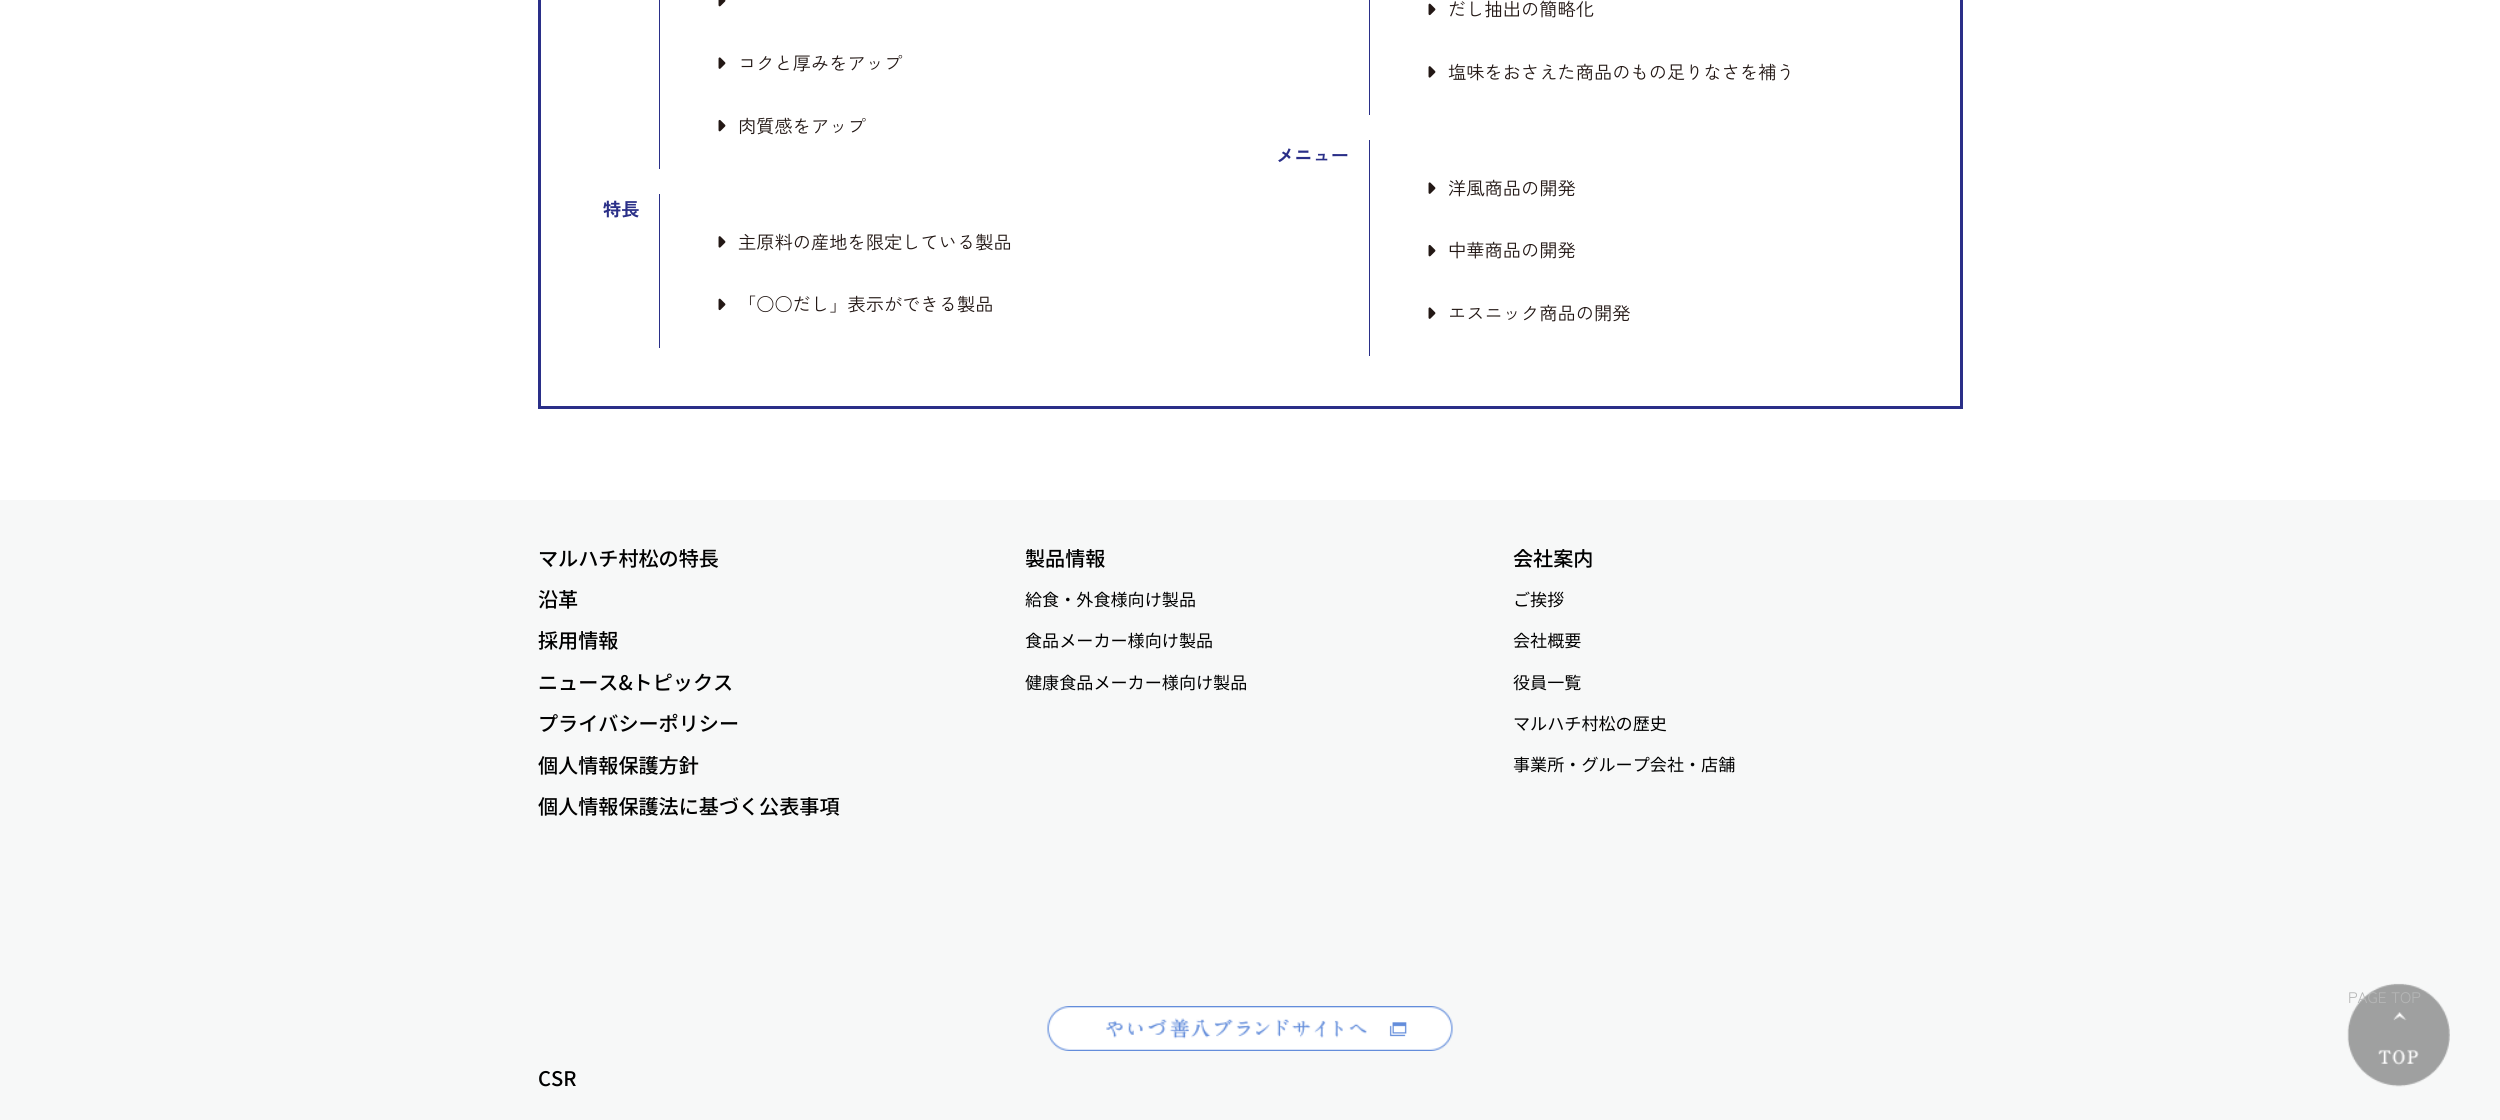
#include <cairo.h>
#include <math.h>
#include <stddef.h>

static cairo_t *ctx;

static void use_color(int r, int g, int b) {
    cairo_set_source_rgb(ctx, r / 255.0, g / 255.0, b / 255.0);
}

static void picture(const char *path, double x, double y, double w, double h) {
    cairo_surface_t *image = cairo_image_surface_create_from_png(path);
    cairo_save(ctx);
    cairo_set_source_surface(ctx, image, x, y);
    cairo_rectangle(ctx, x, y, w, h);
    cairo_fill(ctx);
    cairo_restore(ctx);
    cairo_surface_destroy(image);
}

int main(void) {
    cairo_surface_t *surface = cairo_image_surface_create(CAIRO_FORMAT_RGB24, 2500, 1120);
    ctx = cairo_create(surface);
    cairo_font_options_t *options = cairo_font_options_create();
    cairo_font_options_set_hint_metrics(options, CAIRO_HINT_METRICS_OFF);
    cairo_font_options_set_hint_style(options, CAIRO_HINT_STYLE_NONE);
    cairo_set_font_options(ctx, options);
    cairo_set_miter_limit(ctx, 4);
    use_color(255, 255, 255);
    cairo_paint(ctx);
    cairo_rectangle(ctx, 539.5, -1.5, 1422, 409);
    use_color(42, 47, 136);
    cairo_set_line_width(ctx, 3);
    cairo_stroke(ctx);
    cairo_rectangle(ctx, 659, 0, 1, 169);
    cairo_fill(ctx);
    picture("img1.png", 718, 0, 8, 7);
    picture("img2.png", 718, 57, 8, 12);
    cairo_select_font_face(ctx, "Zen Kaku Gothic New", CAIRO_FONT_SLANT_NORMAL, CAIRO_FONT_WEIGHT_NORMAL);
    cairo_set_font_size(ctx, 18.25);
    use_color(35, 24, 21);
    cairo_move_to(ctx, 738, 70);
    cairo_show_text(ctx, "コクと厚みをアップ");
    picture("img3.png", 718, 119, 8, 13);
    cairo_move_to(ctx, 738, 133);
    cairo_show_text(ctx, "肉質感をアップ");
    cairo_select_font_face(ctx, "Zen Kaku Gothic New", CAIRO_FONT_SLANT_NORMAL, CAIRO_FONT_WEIGHT_BOLD);
    use_color(42, 47, 136);
    cairo_move_to(ctx, 603, 216);
    cairo_show_text(ctx, "特長");
    cairo_rectangle(ctx, 659, 194, 1, 154);
    cairo_fill(ctx);
    picture("img4.png", 718, 236, 8, 12);
    cairo_select_font_face(ctx, "Zen Kaku Gothic New", CAIRO_FONT_SLANT_NORMAL, CAIRO_FONT_WEIGHT_NORMAL);
    use_color(35, 24, 21);
    cairo_move_to(ctx, 738, 249);
    cairo_show_text(ctx, "主原料の産地を限定している製品");
    picture("img5.png", 718, 298, 8, 13);
    cairo_move_to(ctx, 738, 311);
    cairo_show_text(ctx, "「○○だし」表示ができる製品");
    use_color(42, 47, 136);
    cairo_rectangle(ctx, 1369, 0, 1, 115);
    cairo_fill(ctx);
    picture("img5.png", 1428, 3, 8, 13);
    use_color(35, 24, 21);
    cairo_move_to(ctx, 1448, 16);
    cairo_show_text(ctx, "だし抽出の簡略化");
    picture("img4.png", 1428, 66, 8, 12);
    cairo_move_to(ctx, 1448, 79);
    cairo_show_text(ctx, "塩味をおさえた商品のもの足りなさを補う");
    cairo_select_font_face(ctx, "Zen Kaku Gothic New", CAIRO_FONT_SLANT_NORMAL, CAIRO_FONT_WEIGHT_BOLD);
    use_color(42, 47, 136);
    cairo_move_to(ctx, 1276, 162);
    cairo_show_text(ctx, "メニュー");
    cairo_rectangle(ctx, 1369, 140, 1, 216);
    cairo_fill(ctx);
    picture("img2.png", 1428, 182, 8, 12);
    cairo_select_font_face(ctx, "Zen Kaku Gothic New", CAIRO_FONT_SLANT_NORMAL, CAIRO_FONT_WEIGHT_NORMAL);
    use_color(35, 24, 21);
    cairo_move_to(ctx, 1448, 195);
    cairo_show_text(ctx, "洋風商品の開発");
    picture("img3.png", 1428, 244, 8, 13);
    cairo_move_to(ctx, 1448, 257);
    cairo_show_text(ctx, "中華商品の開発");
    picture("img2.png", 1428, 307, 8, 12);
    cairo_move_to(ctx, 1448, 320);
    cairo_show_text(ctx, "エスニック商品の開発");
    use_color(247, 248, 248);
    cairo_rectangle(ctx, 0, 500, 2500, 620);
    cairo_fill(ctx);
    cairo_select_font_face(ctx, "Noto Sans JP Medium", CAIRO_FONT_SLANT_NORMAL, CAIRO_FONT_WEIGHT_NORMAL);
    cairo_set_font_size(ctx, 20.1);
    use_color(0, 0, 0);
    cairo_move_to(ctx, 538, 566);
    cairo_show_text(ctx, "マルハチ村松の特長");
    cairo_move_to(ctx, 538, 607);
    cairo_show_text(ctx, "沿革");
    cairo_move_to(ctx, 538, 648);
    cairo_show_text(ctx, "採用情報");
    cairo_move_to(ctx, 538, 690);
    cairo_show_text(ctx, "ニュース&トピックス");
    cairo_move_to(ctx, 538, 731);
    cairo_show_text(ctx, "プライバシーポリシー");
    cairo_move_to(ctx, 538, 773);
    cairo_show_text(ctx, "個人情報保護方針");
    cairo_move_to(ctx, 538, 814);
    cairo_show_text(ctx, "個人情報保護法に基づく公表事項");
    cairo_move_to(ctx, 1025, 566);
    cairo_show_text(ctx, "製品情報");
    cairo_select_font_face(ctx, "Noto Sans JP", CAIRO_FONT_SLANT_NORMAL, CAIRO_FONT_WEIGHT_NORMAL);
    cairo_set_font_size(ctx, 17.1);
    cairo_move_to(ctx, 1025, 606);
    cairo_show_text(ctx, "給食・外食様向け製品");
    cairo_move_to(ctx, 1025, 647);
    cairo_show_text(ctx, "食品メーカー様向け製品");
    cairo_move_to(ctx, 1025, 689);
    cairo_show_text(ctx, "健康食品メーカー様向け製品");
    cairo_select_font_face(ctx, "Noto Sans JP Medium", CAIRO_FONT_SLANT_NORMAL, CAIRO_FONT_WEIGHT_NORMAL);
    cairo_set_font_size(ctx, 20.1);
    cairo_move_to(ctx, 1513, 566);
    cairo_show_text(ctx, "会社案内");
    cairo_select_font_face(ctx, "Noto Sans JP", CAIRO_FONT_SLANT_NORMAL, CAIRO_FONT_WEIGHT_NORMAL);
    cairo_set_font_size(ctx, 17.1);
    cairo_move_to(ctx, 1513, 606);
    cairo_show_text(ctx, "ご挨拶");
    cairo_move_to(ctx, 1513, 647);
    cairo_show_text(ctx, "会社概要");
    cairo_move_to(ctx, 1513, 689);
    cairo_show_text(ctx, "役員一覧");
    cairo_move_to(ctx, 1513, 730);
    cairo_show_text(ctx, "マルハチ村松の歴史");
    cairo_move_to(ctx, 1513, 771);
    cairo_show_text(ctx, "事業所・グループ会社・店舗");
    picture("img6.png", 1047, 1006, 406, 45);
    cairo_select_font_face(ctx, "Noto Sans JP Medium", CAIRO_FONT_SLANT_NORMAL, CAIRO_FONT_WEIGHT_NORMAL);
    cairo_set_font_size(ctx, 20.1);
    cairo_move_to(ctx, 538, 1086);
    cairo_show_text(ctx, "CSR");
    picture("img7.png", 2347, 983, 103, 104);
    cairo_select_font_face(ctx, "Zen Kaku Gothic New", CAIRO_FONT_SLANT_NORMAL, CAIRO_FONT_WEIGHT_NORMAL);
    cairo_set_font_size(ctx, 15.25);
    use_color(181, 182, 182);
    cairo_move_to(ctx, 2348, 1003);
    cairo_show_text(ctx, "PAGE TOP");
    cairo_surface_write_to_png(surface, "result.png");
    cairo_font_options_destroy(options);
    cairo_destroy(ctx);
    cairo_surface_destroy(surface);
    return 0;
}
